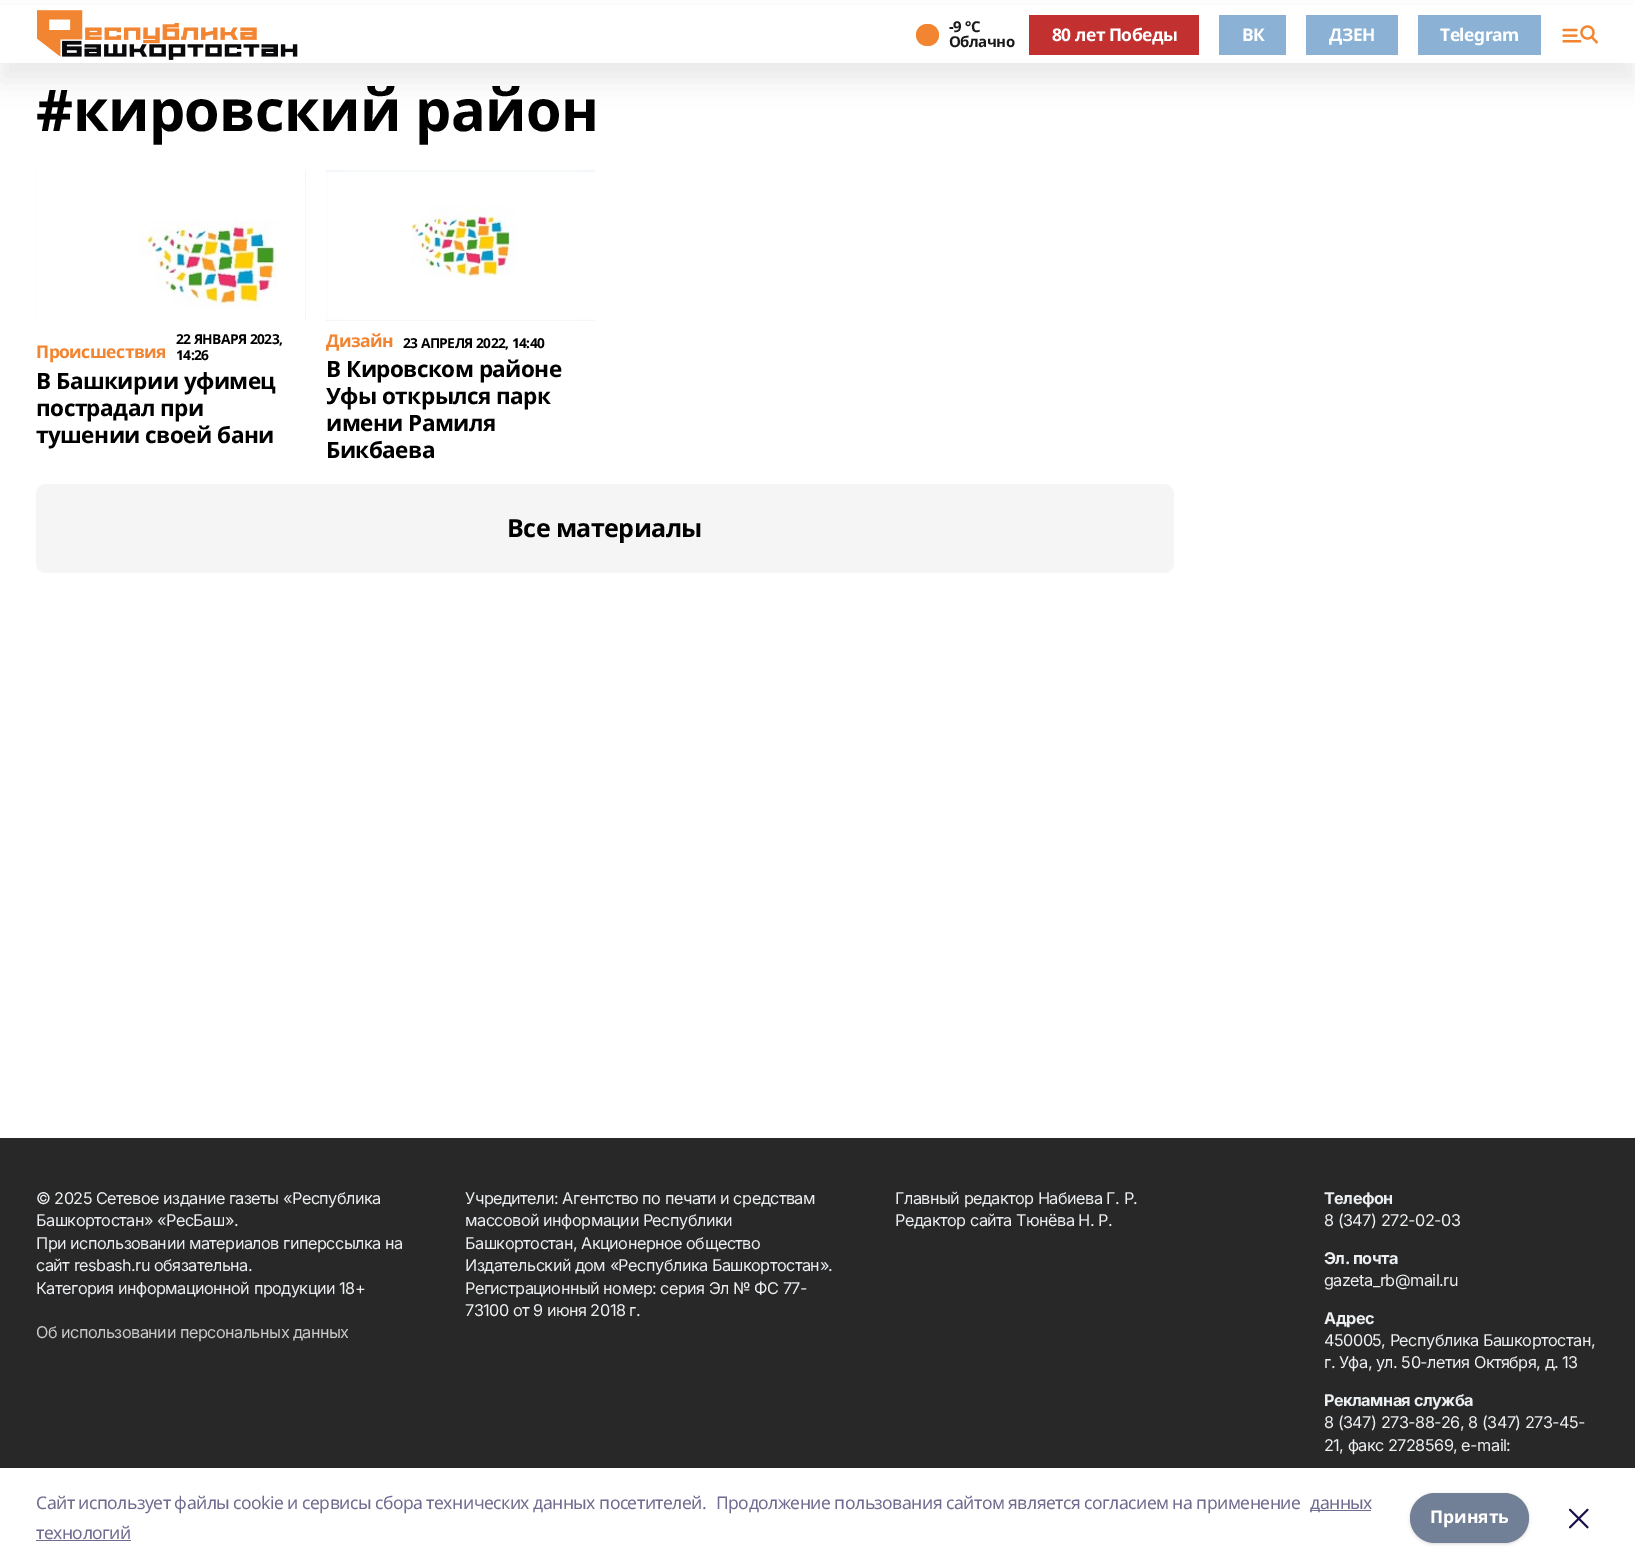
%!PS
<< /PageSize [1635 1567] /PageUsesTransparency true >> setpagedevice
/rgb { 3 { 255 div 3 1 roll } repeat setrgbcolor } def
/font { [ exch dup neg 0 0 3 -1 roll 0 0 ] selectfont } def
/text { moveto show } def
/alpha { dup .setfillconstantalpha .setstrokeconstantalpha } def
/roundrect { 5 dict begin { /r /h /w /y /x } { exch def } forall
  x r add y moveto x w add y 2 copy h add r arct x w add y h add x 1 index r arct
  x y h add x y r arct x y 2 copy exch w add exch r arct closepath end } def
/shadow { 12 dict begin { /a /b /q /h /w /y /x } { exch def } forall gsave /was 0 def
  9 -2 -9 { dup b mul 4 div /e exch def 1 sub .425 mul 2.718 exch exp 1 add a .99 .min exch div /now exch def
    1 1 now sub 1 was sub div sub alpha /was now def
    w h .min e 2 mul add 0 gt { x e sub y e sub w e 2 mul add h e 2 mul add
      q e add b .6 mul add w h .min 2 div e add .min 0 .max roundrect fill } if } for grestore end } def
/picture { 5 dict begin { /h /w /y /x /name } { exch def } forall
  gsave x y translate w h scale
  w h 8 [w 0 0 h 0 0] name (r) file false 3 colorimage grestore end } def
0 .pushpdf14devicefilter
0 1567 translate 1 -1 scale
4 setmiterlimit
255 255 255 rgb
0 0 1635 1567 rectfill
0 0 0 rgb
0 19 1635 62 0 12.5 0.08 shadow
255 255 255 rgb
0 5 1635 58 rectfill
(img_01.rgb) 37 10 261 50 picture
241 133 50 rgb
916 24 23 22 11 roundrect fill
194 48 48 rgb
1029 15 170 40 rectfill
139 177 212 rgb
1219 15 67 40 rectfill
1306 15 92 40 rectfill
1418 15 123 40 rectfill
(img_02.rgb) 1562 25 37 19 picture
237 242 247 rgb
36 170 270 151 rectfill
(img_03.rgb) 36 170 270 151 picture
(img_04.rgb) 36 170 269 151 picture
326 170 269 151 rectfill
(img_05.rgb) 326 170 269 151 picture
(img_06.rgb) 326 172 269 148 picture
245 245 245 rgb
36 484 1138 89 10 roundrect fill
40 40 40 rgb
0 1138 1635 330 rectfill
20 20 43 rgb
0 1460 1635 100 0 14.5 0.08 shadow
255 255 255 rgb
0 1468 1635 99 rectfill
111 108 144 rgb
1310 1510 61 1 rectfill
36 1540 95 1 rectfill
0 0 0 rgb
1410 1494 119 50 25 1 0.06 shadow
1410 1494 119 50 25 2 0.1 shadow
113 128 150 rgb
1410 1493 119 50 25 roundrect fill
(img_07.rgb) 1569 1508 20 21 picture
/NotoSans-Bold 15 font
26 26 26 rgb
949 32 moveto -0.53 0 (-9 °С) ashow
949 47 moveto -0.53 0 (Облачно) ashow
/NotoSans-Bold 17.5 font
255 255 255 rgb
1052 41 moveto -0.53 0 (80 лет Победы) ashow
1242 41 moveto -0.53 0 (ВК) ashow
1329 41 moveto -0.53 0 (ДЗЕН) ashow
1440 41 moveto -0.53 0 (Telegram) ashow
/NotoSans-Bold 57.5 font
0 0 0 rgb
36 131 moveto -0.53 0 (#кировский район) ashow
/NotoSans-Bold 17.5 font
241 133 50 rgb
36 358 moveto -0.53 0 (Происшествия) ashow
/NotoSans-Bold 13.75 font
0 0 0 rgb
176 344 moveto -0.53 0 (22 ЯНВАРЯ 2023,) ashow
176 360 moveto -0.53 0 (14:26) ashow
/NotoSans-Bold 22.5 font
36 389 moveto -0.53 0 (В Башкирии уфимец) ashow
36 416 moveto -0.53 0 (пострадал при) ashow
36 443 moveto -0.53 0 (тушении своей бани) ashow
/NotoSans-Bold 17.5 font
241 133 50 rgb
326 347 moveto -0.53 0 (Дизайн) ashow
/NotoSans-Bold 13.75 font
0 0 0 rgb
403 348 moveto -0.53 0 (23 АПРЕЛЯ 2022, 14:40) ashow
/NotoSans-Bold 22.5 font
326 377 moveto -0.53 0 (В Кировском районе) ashow
326 404 moveto -0.53 0 (Уфы открылся парк) ashow
326 431 moveto -0.53 0 (имени Рамиля) ashow
326 458 moveto -0.53 0 (Бикбаева) ashow
/NotoSans-Bold 25 font
507 537 moveto -0.53 0 (Все материалы) ashow
/Inter-Regular 16.25 font
236 239 241 rgb
36 1204 moveto -0.53 0 (© 2025 Сетевое издание газеты «Республика) ashow
36 1226 moveto -0.53 0 (Башкортостан» «РесБаш».) ashow
36 1249 moveto -0.53 0 (При использовании материалов гиперссылка на) ashow
36 1271 moveto -0.53 0 (сайт resbash.ru обязательна.) ashow
36 1294 moveto -0.53 0 (Категория информационной продукции 18+) ashow
201 201 201 rgb
36 1338 moveto -0.53 0 (Об использовании персональных данных) ashow
236 239 241 rgb
465 1204 moveto -0.53 0 (Учредители: Агентство по печати и средствам) ashow
465 1226 moveto -0.53 0 (массовой информации Республики) ashow
465 1249 moveto -0.53 0 (Башкортостан, Акционерное общество) ashow
465 1271 moveto -0.53 0 (Издательский дом «Республика Башкортостан».) ashow
465 1294 moveto -0.53 0 (Регистрационный номер: серия Эл № ФС 77-) ashow
465 1316 moveto -0.53 0 (73100 от 9 июня 2018 г.) ashow
895 1204 moveto -0.53 0 (Главный редактор Набиева Г. Р.) ashow
895 1226 moveto -0.53 0 (Редактор сайта Тюнёва Н. Р.) ashow
/Inter-Bold 16.25 font
1324 1204 moveto -0.53 0 (Телефон) ashow
/Inter-Regular 16.25 font
1324 1226 moveto -0.53 0 (8 \(347\) 272-02-03) ashow
/Inter-Bold 16.25 font
1324 1264 moveto -0.53 0 (Эл. почта) ashow
/Inter-Regular 16.25 font
1324 1286 moveto -0.53 0 (gazeta_rb@mail.ru) ashow
/Inter-Bold 16.25 font
1324 1324 moveto -0.53 0 (Адрес) ashow
/Inter-Regular 16.25 font
1324 1346 moveto -0.53 0 (450005, Республика Башкортостан,) ashow
1324 1368 moveto -0.53 0 (г. Уфа, ул. 50-летия Октября, д. 13) ashow
/Inter-Bold 16.25 font
1324 1406 moveto -0.53 0 (Рекламная служба) ashow
/Inter-Regular 16.25 font
1324 1428 moveto -0.53 0 (8 \(347\) 273-88-26, 8 \(347\) 273-45-) ashow
1324 1451 moveto -0.53 0 (21, факс 2728569, e-mail:) ashow
/NotoSans-Regular 17.5 font
111 108 144 rgb
36 1509 moveto -0.53 0 (Cайт использует файлы cookie и сервисы сбора технических данных посетителей.) ashow
716 1509 moveto -0.53 0 (Продолжение пользования сайтом является согласием на применение) ashow
1310 1509 moveto -0.53 0 (данных) ashow
36 1539 moveto -0.53 0 (технологий) ashow
/NotoSans-Bold 17.5 font
255 255 255 rgb
(Принять) 1430 1523 text
.poppdf14devicefilter showpage
